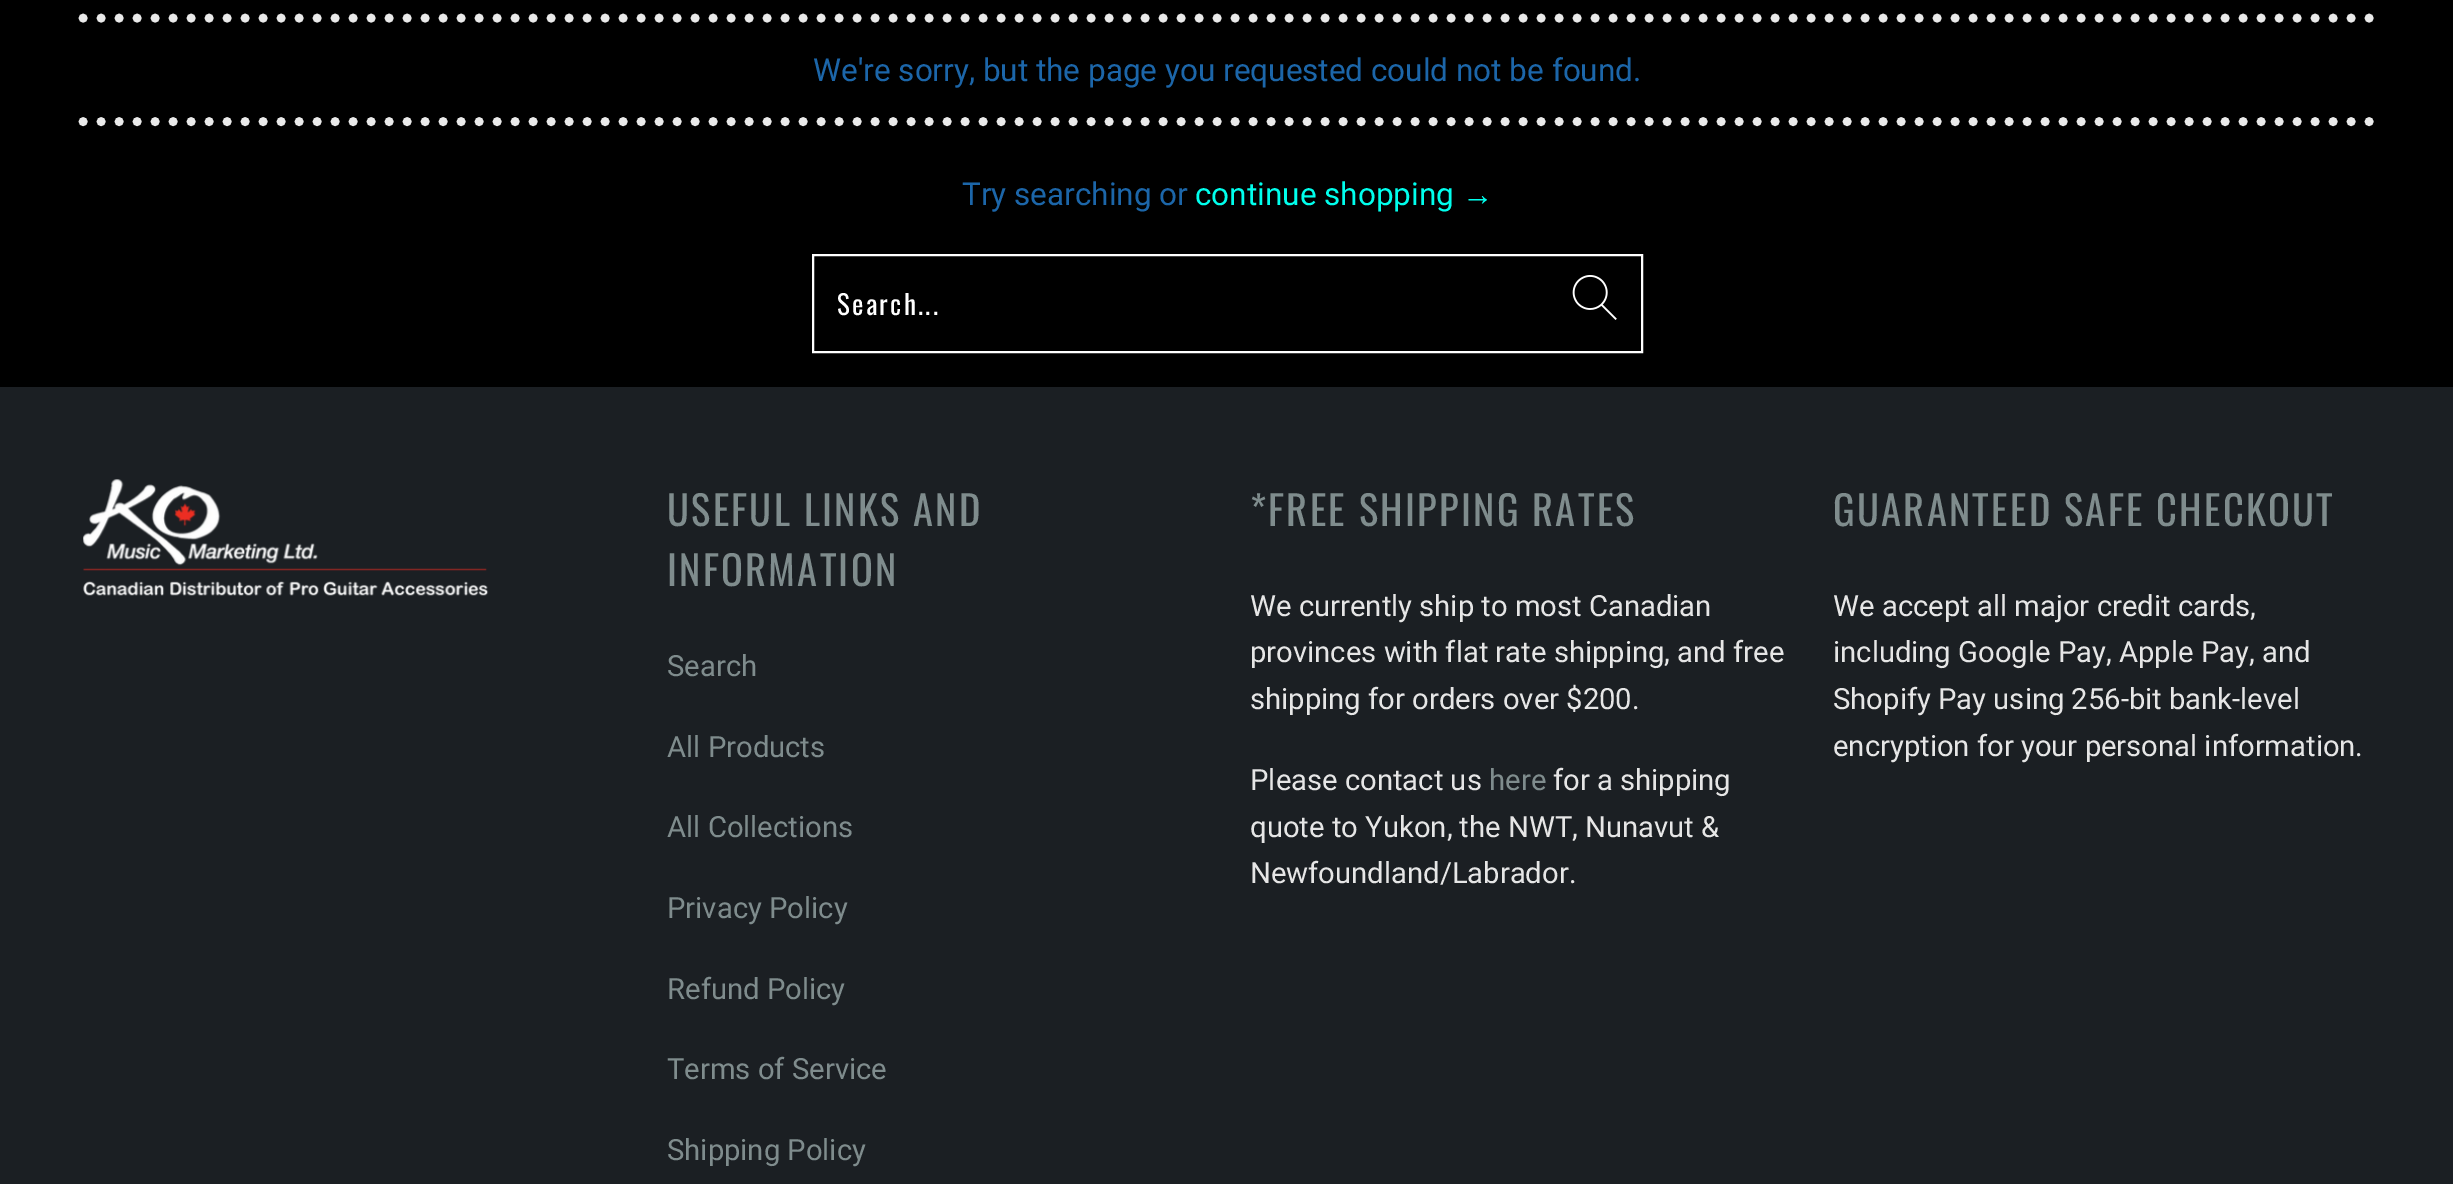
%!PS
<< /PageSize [2453 1184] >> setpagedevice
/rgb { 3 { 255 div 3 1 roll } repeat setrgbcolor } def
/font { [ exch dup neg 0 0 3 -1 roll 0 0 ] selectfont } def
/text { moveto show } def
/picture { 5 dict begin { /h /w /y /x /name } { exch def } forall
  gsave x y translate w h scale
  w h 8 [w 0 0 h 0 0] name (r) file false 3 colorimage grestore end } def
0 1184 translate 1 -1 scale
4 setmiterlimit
0 0 0 rgb
0 0 2453 1184 rectfill
234 234 234 rgb
9 setlinewidth
1 setlinecap
[0 18] 0 setdash
83 18 moveto 2288.5 0 rlineto stroke
83 121.5 moveto 2288.5 0 rlineto stroke
255 255 255 rgb
2 setlinewidth
0 setlinecap
[] 0 setdash
813 255 829 97 rectstroke
(img_01.rgb) 1572 275 45 45 picture
27 31 35 rgb
0 387 2453 797 rectfill
(img_02.rgb) 83 479 406 117 picture
/Roboto-Regular 31.5 font
28 102 169 rgb
(We're sorry, but the page you requested could not be found.) 813 81 text
(Try searching or) 962 205 text
0 255 237 rgb
(continue shopping) 1195 205 text
/LiberationSans-Regular 31.5 font
(→) 1462 205 text
/Oswald-Regular 27 font
255 255 255 rgb
837 315 moveto 2.25 0 (Search...) ashow
/Oswald-Regular 40.5 font
127 140 141 rgb
667 526 moveto 2.25 0 (USEFUL LINKS AND) ashow
667 586 moveto 2.25 0 (INFORMATION) ashow
/Roboto-Regular 29.25 font
(Search) 667 676 text
(All Products) 667 757 text
(All Collections) 667 837 text
(Privacy Policy) 667 918 text
(Refund Policy) 667 999 text
(Terms of Service) 667 1079 text
(Shipping Policy) 667 1160 text
/Oswald-Regular 40.5 font
1250 526 moveto 2.25 0 (*FREE SHIPPING RATES) ashow
/Roboto-Regular 29.25 font
230 230 230 rgb
(We currently ship to most Canadian) 1250 616 text
(provinces with flat rate shipping, and free) 1250 662 text
(shipping for orders over $200.) 1250 709 text
(Please contact us) 1250 790 text
127 140 141 rgb
(here) 1489 790 text
230 230 230 rgb
(for a shipping) 1553 790 text
(quote to Yukon, the NWT, Nunavut &) 1250 837 text
(Newfoundland/Labrador.) 1250 883 text
/Oswald-Regular 40.5 font
127 140 141 rgb
1833 526 moveto 2.25 0 (GUARANTEED SAFE CHECKOUT) ashow
/Roboto-Regular 29.25 font
230 230 230 rgb
(We accept all major credit cards,) 1833 616 text
(including Google Pay, Apple Pay, and) 1833 662 text
(Shopify Pay using 256-bit bank-level) 1833 709 text
(encryption for your personal information.) 1833 756 text
showpage
